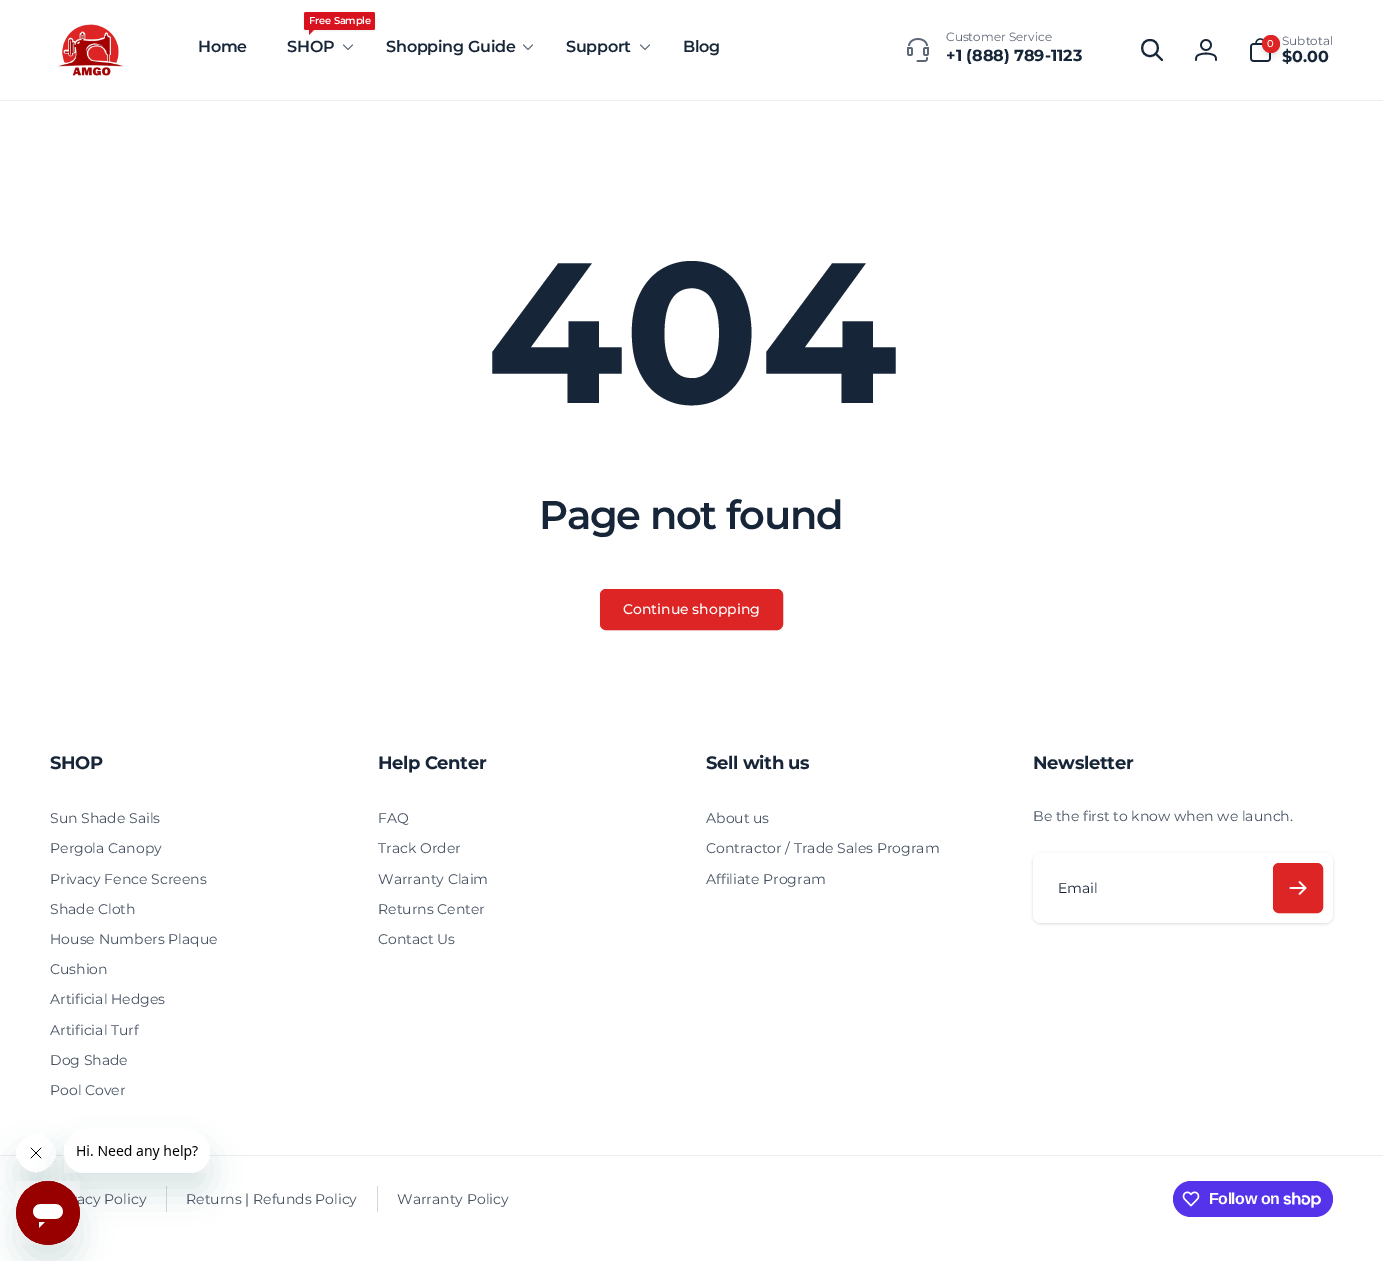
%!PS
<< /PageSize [1383 1261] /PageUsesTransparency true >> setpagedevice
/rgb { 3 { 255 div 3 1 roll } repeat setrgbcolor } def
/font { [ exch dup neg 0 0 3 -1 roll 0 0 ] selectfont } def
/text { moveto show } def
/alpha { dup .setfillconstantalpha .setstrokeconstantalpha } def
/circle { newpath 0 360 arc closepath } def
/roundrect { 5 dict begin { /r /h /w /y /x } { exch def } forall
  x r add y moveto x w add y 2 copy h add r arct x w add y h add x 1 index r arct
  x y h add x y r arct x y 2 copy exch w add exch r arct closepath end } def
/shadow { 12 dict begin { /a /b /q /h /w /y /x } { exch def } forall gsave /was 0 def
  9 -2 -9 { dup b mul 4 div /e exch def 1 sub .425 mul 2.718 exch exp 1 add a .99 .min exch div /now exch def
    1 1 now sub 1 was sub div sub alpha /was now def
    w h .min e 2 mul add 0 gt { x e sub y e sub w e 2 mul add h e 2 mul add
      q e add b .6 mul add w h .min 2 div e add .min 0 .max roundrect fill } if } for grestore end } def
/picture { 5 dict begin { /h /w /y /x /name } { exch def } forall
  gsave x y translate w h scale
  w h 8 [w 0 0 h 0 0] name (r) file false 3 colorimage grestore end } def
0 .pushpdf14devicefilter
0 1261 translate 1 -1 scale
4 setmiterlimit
255 255 255 rgb
0 0 1383 1261 rectfill
236 238 239 rgb
0 100 1383 1 rectfill
(img_01.rgb) 58 24 66 52 picture
23 37 57 rgb
304 13 71 18 2 1 0.07 shadow
217 18 31 rgb
304 12 71 18 2 roundrect fill
309 27 moveto 8 0 rlineto -4 4 rlineto closepath fill
309 35 moveto 0 -8 rlineto 4 4 rlineto closepath fill
93 102 116 rgb
1 setlinecap
1 setlinejoin
352.5 45 moveto -4.5 4.5 rlineto -4.5 -4.5 rlineto stroke
532.5 45 moveto -4.5 4.5 rlineto -4.5 -4.5 rlineto stroke
649.5 45 moveto -4.5 4.5 rlineto -4.5 -4.5 rlineto stroke
(img_02.rgb) 907 38 22 24 picture
23 37 57 rgb
2 setlinewidth
1162 60 moveto -6.5 -6.5 rlineto 1150 56 moveto 10.5 0 10.5 -16 0 -16 rcurveto -10.5 0 -10.5 16 0 16 rcurveto closepath stroke
(img_03.rgb) 1195 39 22 22 picture
(img_04.rgb) 1250 38 21 24 picture
1263 38 16 16 8 2 0.06 shadow
1263 40 16 16 8 3 0.1 shadow
221 37 37 rgb
1271 44 9 circle fill
23 37 57 rgb
600 590 183 41 6 1 0.05 shadow
221 37 37 rgb
600.5 589.5 182 40 5.5 roundrect gsave fill grestore
1 setlinewidth
0 setlinecap
0 setlinejoin
stroke
23 37 57 rgb
1033 854 300 70 8 1.5 0.1 shadow
1033 854 300 70 8 1 0.06 shadow
255 255 255 rgb
1033 853 300 70 8 roundrect fill
23 37 57 rgb
1273 864 50 50 6 1 0.05 shadow
221 37 37 rgb
1273.5 863.5 49 49 5.5 roundrect gsave fill grestore
stroke
255 255 255 rgb
1.7 setlinewidth
1 setlinecap
1 setlinejoin
1299.5 882 moveto 6 6 rlineto 1305.5 888 moveto -6 6 rlineto 1305.5 888 moveto -15 0 rlineto stroke
236 238 239 rgb
0 1155 1383 1 rectfill
213 216 219 rgb
166 1186 1 26 rectfill
377 1186 1 26 rectfill
84 51 235 rgb
1173 1181 160 36 18 roundrect fill
(img_05.rgb) 1182 1191 18 16 picture
(img_06.rgb) 1283 1192 38 16 picture
gsave
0 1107 moveto 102 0 rlineto 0 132 rlineto -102 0 rlineto closepath 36 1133 moveto 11 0 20 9 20 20 rcurveto 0 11 -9 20 -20 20 rcurveto -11 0 -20 -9 -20 -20 rcurveto 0 -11 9 -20 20 -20 rcurveto closepath eoclip newpath
23 73 77 rgb
16 1153 40 40 20 15 0.15 shadow
grestore
(img_08.rgb) 16 1147 40 12 picture
gsave
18 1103 moveto 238 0 rlineto 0 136 rlineto -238 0 rlineto closepath 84 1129 moveto 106 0 rlineto 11 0 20 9 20 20 rcurveto 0 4 rlineto 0 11 -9 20 -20 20 rcurveto -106 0 rlineto -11 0 -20 -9 -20 -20 rcurveto 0 -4 rlineto 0 -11 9 -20 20 -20 rcurveto closepath eoclip newpath
23 73 77 rgb
64 1149 146 44 20 15 0.15 shadow
grestore
(img_07.rgb) 64 1145 146 28 picture
23 73 77 rgb
16 1201 64 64 32 15 0.15 shadow
/Montserrat-SemiBold 16 font
23 37 57 rgb
198 52 moveto -0.25 0 (Home) ashow
/Montserrat-SemiBold 10 font
255 255 255 rgb
309 24 moveto -0.25 0 (Free Sample) ashow
/Montserrat-SemiBold 16 font
23 37 57 rgb
287 52 moveto -0.25 0 (SHOP) ashow
386 52 moveto -0.25 0 (Shopping Guide) ashow
566 52 moveto -0.25 0 (Support) ashow
683 52 moveto -0.25 0 (Blog) ashow
/Montserrat-Regular 12 font
93 102 116 rgb
(Customer Service) 946 41 text
/Montserrat-Bold 16 font
23 37 57 rgb
(+1 \(888\) 789-1123) 946 61 text
/Montserrat-Medium 10 font
255 255 255 rgb
(0) 1267 47 text
/Montserrat-Regular 12 font
93 102 116 rgb
(Subtotal) 1282 45 text
/Montserrat-Bold 16 font
23 37 57 rgb
($0.00) 1282 62 text
/Montserrat-Bold 200 font
(404) 486 403 text
/Montserrat-SemiBold 40 font
539 529 moveto -1.25 0 (Page not found) ashow
/Montserrat-Medium 14 font
255 255 255 rgb
(Continue shopping) 623 614 text
/Montserrat-Bold 18 font
23 37 57 rgb
50 769 moveto -0.4 0 (SHOP) ashow
/Montserrat-Regular 14 font
69 81 97 rgb
(Sun Shade Sails) 50 823 text
(Pergola Canopy) 50 853 text
(Privacy Fence Screens) 50 884 text
(Shade Cloth) 50 914 text
(House Numbers Plaque) 50 944 text
(Cushion) 50 974 text
(Artificial Hedges) 50 1004 text
(Artificial Turf) 50 1035 text
(Dog Shade) 50 1065 text
(Pool Cover) 50 1095 text
/Montserrat-Bold 18 font
23 37 57 rgb
378 769 moveto -0.4 0 (Help Center) ashow
/Montserrat-Regular 14 font
69 81 97 rgb
(FAQ) 378 823 text
(Track Order) 378 853 text
(Warranty Claim) 378 884 text
(Returns Center) 378 914 text
(Contact Us) 378 944 text
/Montserrat-Bold 18 font
23 37 57 rgb
706 769 moveto -0.4 0 (Sell with us) ashow
/Montserrat-Regular 14 font
69 81 97 rgb
(About us) 706 823 text
(Contractor / Trade Sales Program) 706 853 text
(Affiliate Program) 706 884 text
/Montserrat-Bold 18 font
23 37 57 rgb
1033 769 moveto -0.4 0 (Newsletter) ashow
/Montserrat-Regular 14 font
69 81 97 rgb
(Be the first to know when we launch.) 1033 821 text
23 37 57 rgb
(Email) 1058 893 text
69 81 97 rgb
(acy Policy) 77 1204 text
(Returns | Refunds Policy) 186 1204 text
(Warranty Policy) 397 1204 text
/LiberationSans-Bold 16 font
255 255 255 rgb
1209 1204 moveto -0.5 0 (Follow on) ashow
(img_09.rgb) 16 1181 64 64 picture
.poppdf14devicefilter showpage
